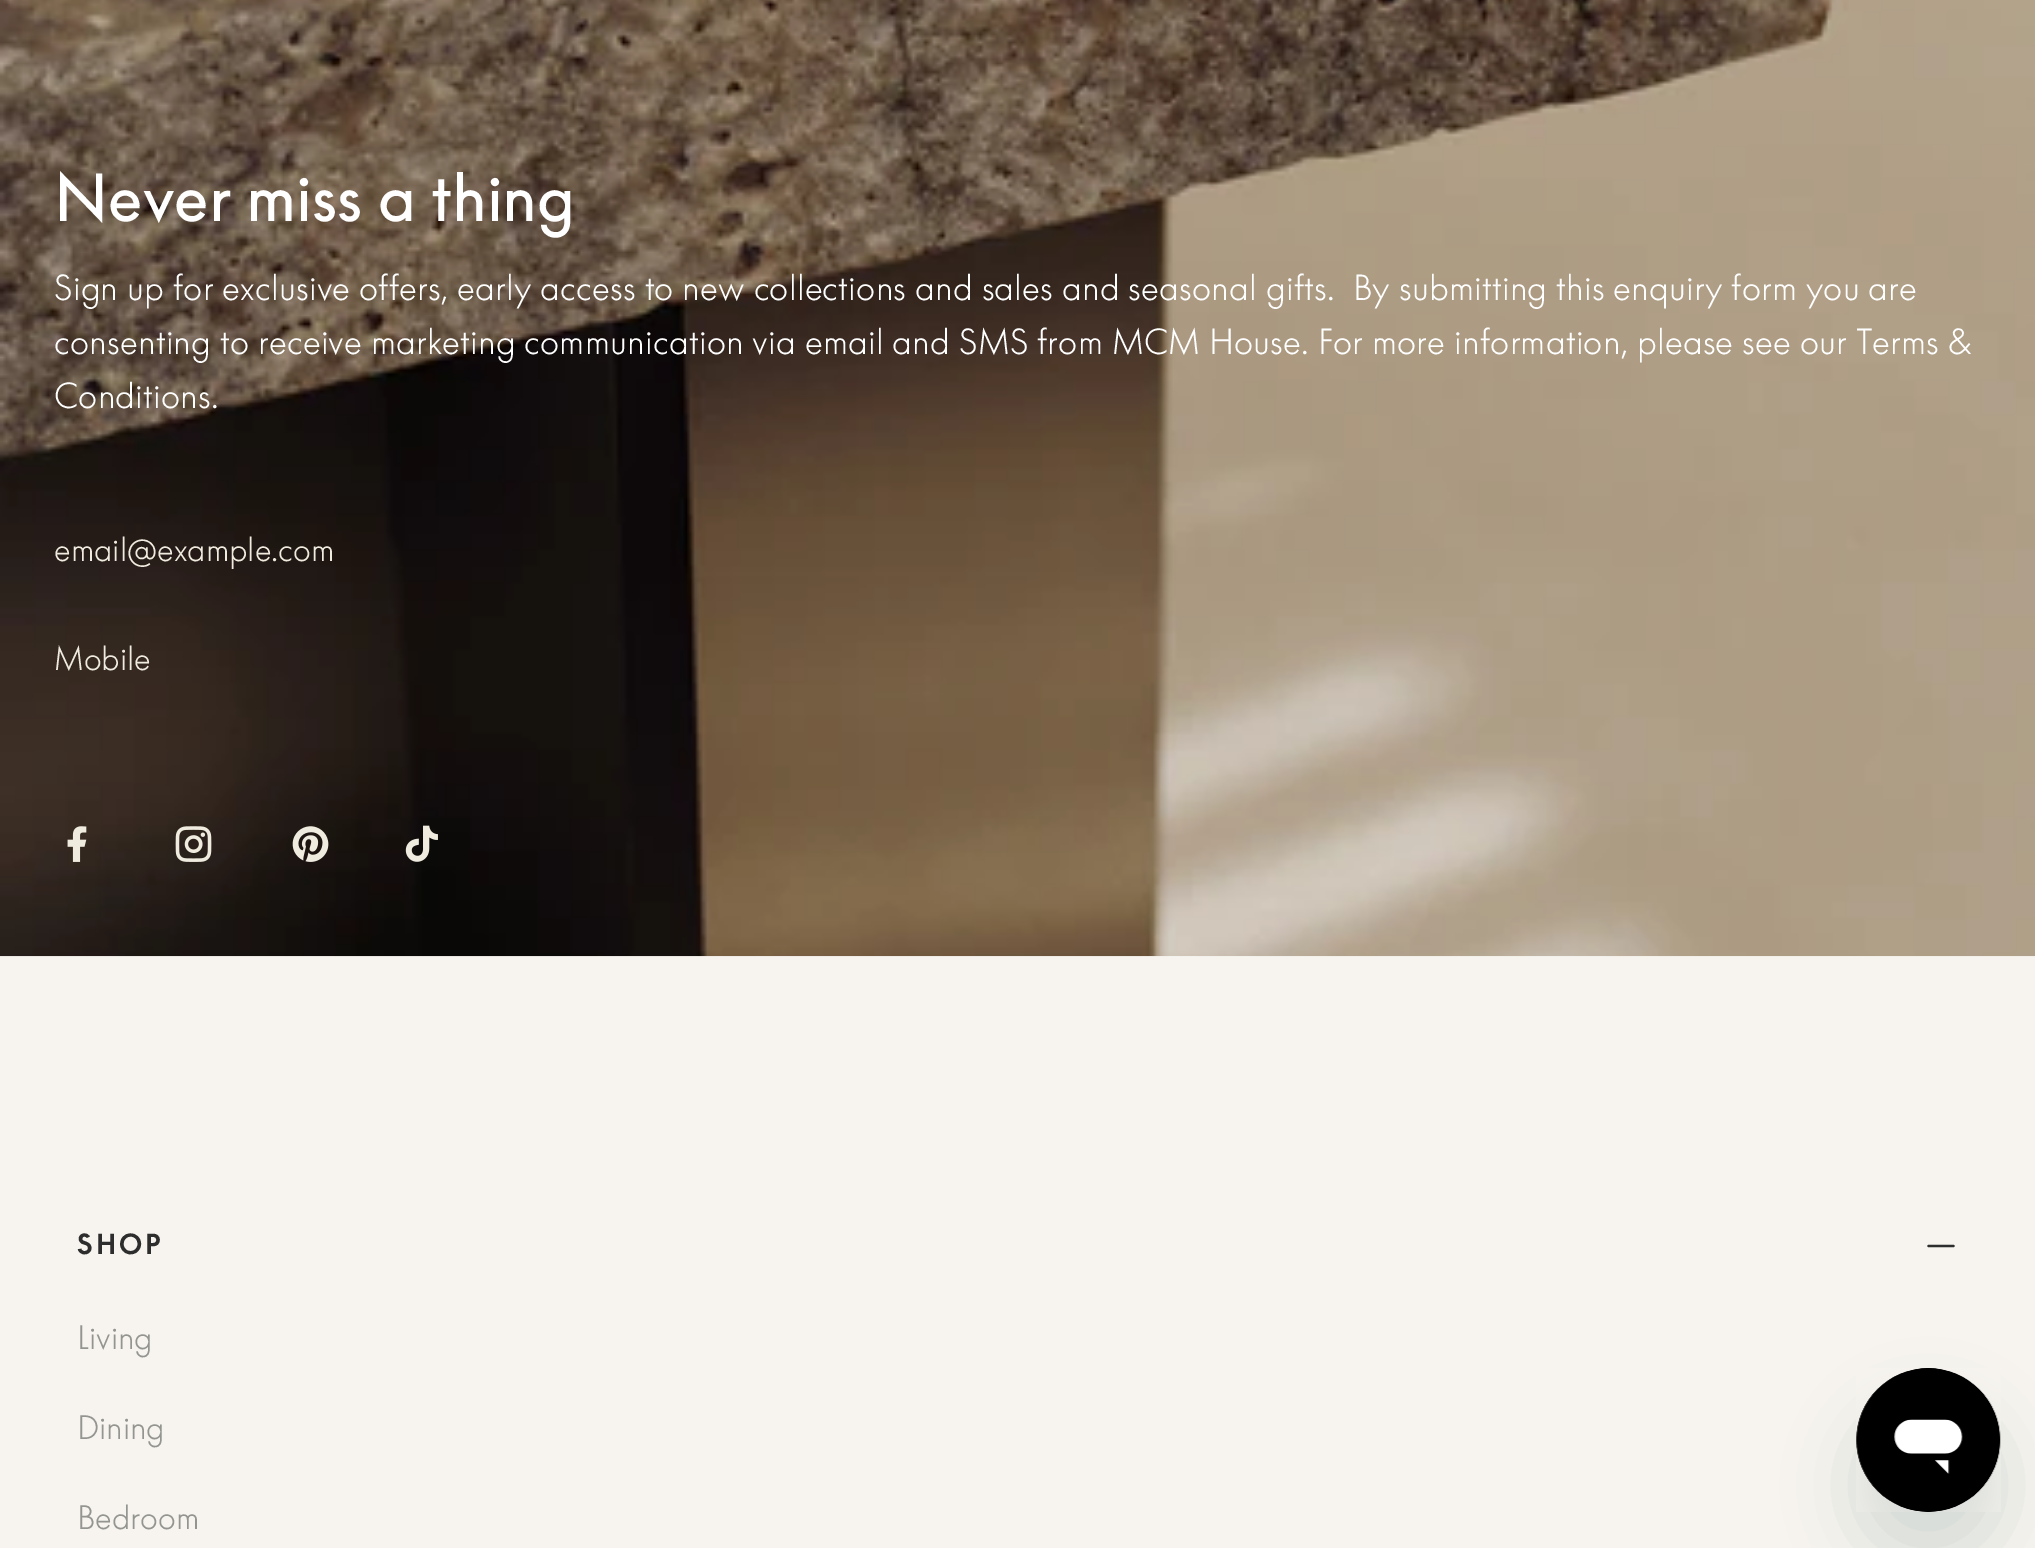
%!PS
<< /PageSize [2035 1548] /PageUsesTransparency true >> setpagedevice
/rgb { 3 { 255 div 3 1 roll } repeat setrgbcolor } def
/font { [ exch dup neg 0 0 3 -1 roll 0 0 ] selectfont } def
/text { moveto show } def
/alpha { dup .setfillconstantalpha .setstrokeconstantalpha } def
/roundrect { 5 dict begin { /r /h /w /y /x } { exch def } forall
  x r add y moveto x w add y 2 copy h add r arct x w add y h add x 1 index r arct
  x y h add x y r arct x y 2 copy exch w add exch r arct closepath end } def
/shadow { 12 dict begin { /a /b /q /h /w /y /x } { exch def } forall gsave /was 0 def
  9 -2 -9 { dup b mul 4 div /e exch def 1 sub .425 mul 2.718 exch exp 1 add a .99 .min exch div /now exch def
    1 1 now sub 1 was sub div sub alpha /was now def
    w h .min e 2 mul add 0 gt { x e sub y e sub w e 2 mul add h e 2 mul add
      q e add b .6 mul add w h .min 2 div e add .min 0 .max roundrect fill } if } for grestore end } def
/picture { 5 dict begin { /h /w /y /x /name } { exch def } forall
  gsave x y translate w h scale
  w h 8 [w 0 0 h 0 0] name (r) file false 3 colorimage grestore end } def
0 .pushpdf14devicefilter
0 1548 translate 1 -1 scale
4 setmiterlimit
247 244 239 rgb
0 0 2035 1548 rectfill
(img_01.rgb) 0 0 2035 957 picture
(img_02.rgb) 67 826 20 36 picture
(img_03.rgb) 175 826 37 36 picture
(img_04.rgb) 292 826 37 36 picture
(img_05.rgb) 405 825 33 37 picture
45 45 45 rgb
2.2 setlinewidth
1 setlinecap
1 setlinejoin
1953.5 1246 moveto -25 0 rlineto stroke
23 73 77 rgb
1856 1413 144 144 72 34 0.15 shadow
(img_06.rgb) 1856 1368 145 144 picture
/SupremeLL-Regular 63 font
255 255 255 rgb
(Never miss a thing) 54 221 text
/SupremeLL-Light 33.75 font
54 300 moveto 0.22 0 (Sign up for exclusive offers, early access to new collections and sales and seasonal gifts.  By submitting this enquiry form you are) ashow
54 354 moveto 0.22 0 (consenting to receive marketing communication via email and SMS from MCM House. For more information, please see our Terms &) ashow
54 408 moveto 0.22 0 (Conditions.) ashow
/SupremeLL-Light 31.5 font
240 235 223 rgb
(email@example.com) 54 561 text
(Mobile) 54 670 text
/SupremeLL-Bold 27 font
45 45 45 rgb
77 1254 moveto 3 0 (SHOP) ashow
/SupremeLL-Light 31.5 font
148 149 145 rgb
(Living) 77 1349 text
(Dining) 77 1439 text
(Bedroom) 77 1529 text
.poppdf14devicefilter showpage
